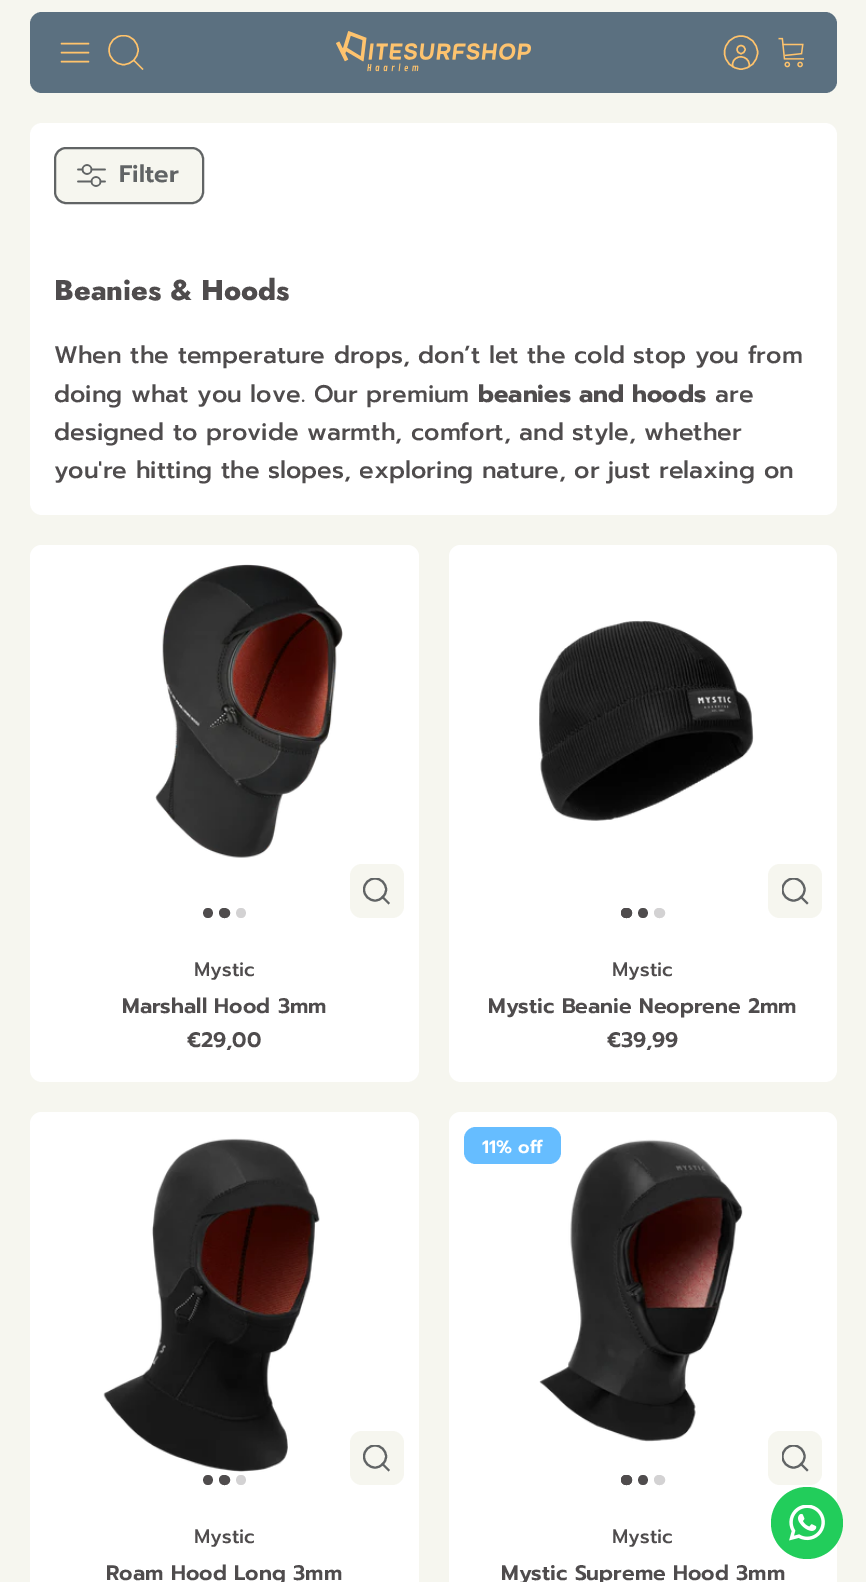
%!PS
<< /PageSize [866 1582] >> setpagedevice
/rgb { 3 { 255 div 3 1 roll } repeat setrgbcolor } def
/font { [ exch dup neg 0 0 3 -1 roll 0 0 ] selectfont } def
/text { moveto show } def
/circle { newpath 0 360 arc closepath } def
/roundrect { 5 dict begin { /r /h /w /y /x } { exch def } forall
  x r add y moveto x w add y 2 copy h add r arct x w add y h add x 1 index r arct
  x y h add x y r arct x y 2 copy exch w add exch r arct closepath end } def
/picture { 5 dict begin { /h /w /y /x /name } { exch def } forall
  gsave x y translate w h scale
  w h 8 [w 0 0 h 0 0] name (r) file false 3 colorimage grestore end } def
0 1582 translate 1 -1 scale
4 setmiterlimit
246 246 239 rgb
0 0 866 1582 rectfill
91 112 128 rgb
30 12 807 81 12 roundrect fill
255 195 108 rgb
1.5 setlinewidth
1 setlinecap
1 setlinejoin
61.5 52.5 moveto 27 0 rlineto 61.5 43.5 moveto 27 0 rlineto 61.5 61.5 moveto 27 0 rlineto stroke
gsave
108 35 36 36 rectclip
1.4 setlinewidth
0 setlinecap
0 setlinejoin
123.5 50 14.5 circle stroke
grestore
1.4 setlinewidth
2 setlinecap
0 setlinejoin
134.5 61 moveto 8 8 rlineto stroke
(img_01.rgb) 336 31 195 41 picture
0 setlinecap
749 67 moveto 2.5 -9 -10.5 -14.5 -15.5 -6 rcurveto -1 2 -1.5 4 -0.5 6 rcurveto stroke
741 49.5 4 circle stroke
741 52.5 16.5 circle stroke
(img_02.rgb) 778 37 26 31 picture
255 255 255 rgb
30 123 807 392 12 roundrect fill
246 246 239 rgb
55 148 148 55 11 roundrect gsave fill grestore
97 100 101 rgb
2 setlinewidth
stroke
(img_03.rgb) 77 164 29 23 picture
255 255 255 rgb
30 545 389 537 12 roundrect fill
42 545 moveto 365 0 rlineto 6.5 0 12 5.5 12 12 rcurveto 0 376 rlineto -389 0 rlineto 0 -376 rlineto 0 -6.5 5.5 -12 12 -12 rcurveto closepath fill
(img_04.rgb) 155 564 188 294 picture
79 76 77 rgb
208 908 moveto 6.5 0 6.5 10 0 10 rcurveto -6.5 0 -6.5 -10 0 -10 rcurveto closepath 224 908 moveto 8 0 8 9.5 1 10 rcurveto -7.5 0.5 -8 -10 -1 -10 rcurveto closepath fill
211 210 211 rgb
241 908 moveto 6.5 0 6.5 10 0 10 rcurveto -6.5 0 -6.5 -10 0 -10 rcurveto closepath fill
246 246 239 rgb
350 864 54 54 12 roundrect fill
gsave
363 878 27 27 rectclip
97 100 101 rgb
2.1 setlinewidth
375 889.5 11 circle stroke
grestore
97 100 101 rgb
2.1 setlinewidth
2 setlinecap
382.5 897 moveto 6 6 rlineto stroke
255 255 255 rgb
449 545 388 537 12 roundrect fill
461 545 moveto 364 0 rlineto 6.5 0 12 5.5 12 12 rcurveto 0 376 rlineto -388 0 rlineto 0 -376 rlineto 0 -6.5 5.5 -12 12 -12 rcurveto closepath fill
(img_05.rgb) 539 620 215 201 picture
79 76 77 rgb
621 908 11 10 5 roundrect fill
626 908 moveto 8 0 8 9.5 1 10 rcurveto -7.5 0.5 -8 -10 -1 -10 rcurveto closepath 643 908 moveto 6.5 0 6.5 10 0 10 rcurveto -6.5 0 -6.5 -10 0 -10 rcurveto closepath fill
211 210 211 rgb
659 908 moveto 8 0 8 9.5 1 10 rcurveto -7.5 0.5 -8 -10 -1 -10 rcurveto closepath fill
246 246 239 rgb
768 864 54 54 12 roundrect fill
gsave
782 878 27 27 rectclip
97 100 101 rgb
0 setlinecap
793.5 889.5 11 circle stroke
grestore
97 100 101 rgb
801 897 moveto 6 6 rlineto stroke
255 255 255 rgb
30 1112 389 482 12 roundrect fill
42 1112 moveto 365 0 rlineto 6.5 0 12 5.5 12 12 rcurveto 0 376 rlineto -389 0 rlineto 0 -376 rlineto 0 -6.5 5.5 -12 12 -12 rcurveto closepath fill
(img_06.rgb) 103 1138 217 334 picture
79 76 77 rgb
208 1475 moveto 6.5 0 6.5 10 0 10 rcurveto -6.5 0 -6.5 -10 0 -10 rcurveto closepath 224 1475 moveto 8 0 8 9.5 1 10 rcurveto -7.5 0.5 -8 -10 -1 -10 rcurveto closepath fill
211 210 211 rgb
241 1475 moveto 6.5 0 6.5 10 0 10 rcurveto -6.5 0 -6.5 -10 0 -10 rcurveto closepath fill
246 246 239 rgb
350 1431 54 54 12 roundrect fill
gsave
363 1445 27 27 rectclip
97 100 101 rgb
0 setlinecap
375 1456.5 11 circle stroke
grestore
97 100 101 rgb
382.5 1464 moveto 6 6 rlineto stroke
255 255 255 rgb
449 1112 388 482 12 roundrect fill
461 1112 moveto 364 0 rlineto 6.5 0 12 5.5 12 12 rcurveto 0 376 rlineto -388 0 rlineto 0 -376 rlineto 0 -6.5 5.5 -12 12 -12 rcurveto closepath fill
(img_07.rgb) 539 1139 204 303 picture
102 189 255 rgb
464 1127 97 37 12 roundrect fill
79 76 77 rgb
621 1475 11 10 5 roundrect fill
626 1475 moveto 8 0 8 9.5 1 10 rcurveto -7.5 0.5 -8 -10 -1 -10 rcurveto closepath 643 1475 moveto 6.5 0 6.5 10 0 10 rcurveto -6.5 0 -6.5 -10 0 -10 rcurveto closepath fill
211 210 211 rgb
659 1475 moveto 8 0 8 9.5 1 10 rcurveto -7.5 0.5 -8 -10 -1 -10 rcurveto closepath fill
246 246 239 rgb
768 1431 54 54 12 roundrect fill
gsave
782 1445 27 27 rectclip
97 100 101 rgb
0 setlinecap
793.5 1456.5 11 circle stroke
grestore
97 100 101 rgb
801 1464 moveto 6 6 rlineto stroke
34 205 91 rgb
807 1523 36 circle fill
(img_08.rgb) 789 1505 36 36 picture
/Prompt-SemiBold 24 font
97 100 101 rgb
(Filter) 119 182 text
/Jost-ExtraBold 28.5 font
79 76 77 rgb
(Beanies & Hoods) 54 300 text
/Prompt-Medium 24 font
(When the temperature drops, don’t let the cold stop you from) 54 363 text
(doing what you love. Our premium) 54 402 text
/Prompt-Bold 24 font
(beanies and hoods) 478 402 text
/Prompt-Medium 24 font
(are) 715 402 text
(designed to provide warmth, comfort, and style, whether) 54 440 text
(you're hitting the slopes, exploring nature, or just relaxing on) 54 478 text
/Prompt-Medium 19.5 font
(Mystic) 194 976 text
/Prompt-SemiBold 21 font
(Marshall Hood 3mm) 122 1013 text
(€29,00) 187 1047 text
/Prompt-Medium 19.5 font
(Mystic) 612 976 text
/Prompt-SemiBold 21 font
(Mystic Beanie Neoprene 2mm) 488 1013 text
(€39,99) 607 1047 text
/Prompt-Medium 19.5 font
(Mystic) 194 1543 text
/Prompt-SemiBold 21 font
(Roam Hood Long 3mm) 106 1580 text
/Prompt-SemiBold 18 font
255 255 255 rgb
(11% off) 482 1153 text
/Prompt-Medium 19.5 font
79 76 77 rgb
(Mystic) 612 1543 text
/Prompt-SemiBold 21 font
(Mystic Supreme Hood 3mm) 501 1580 text
showpage
